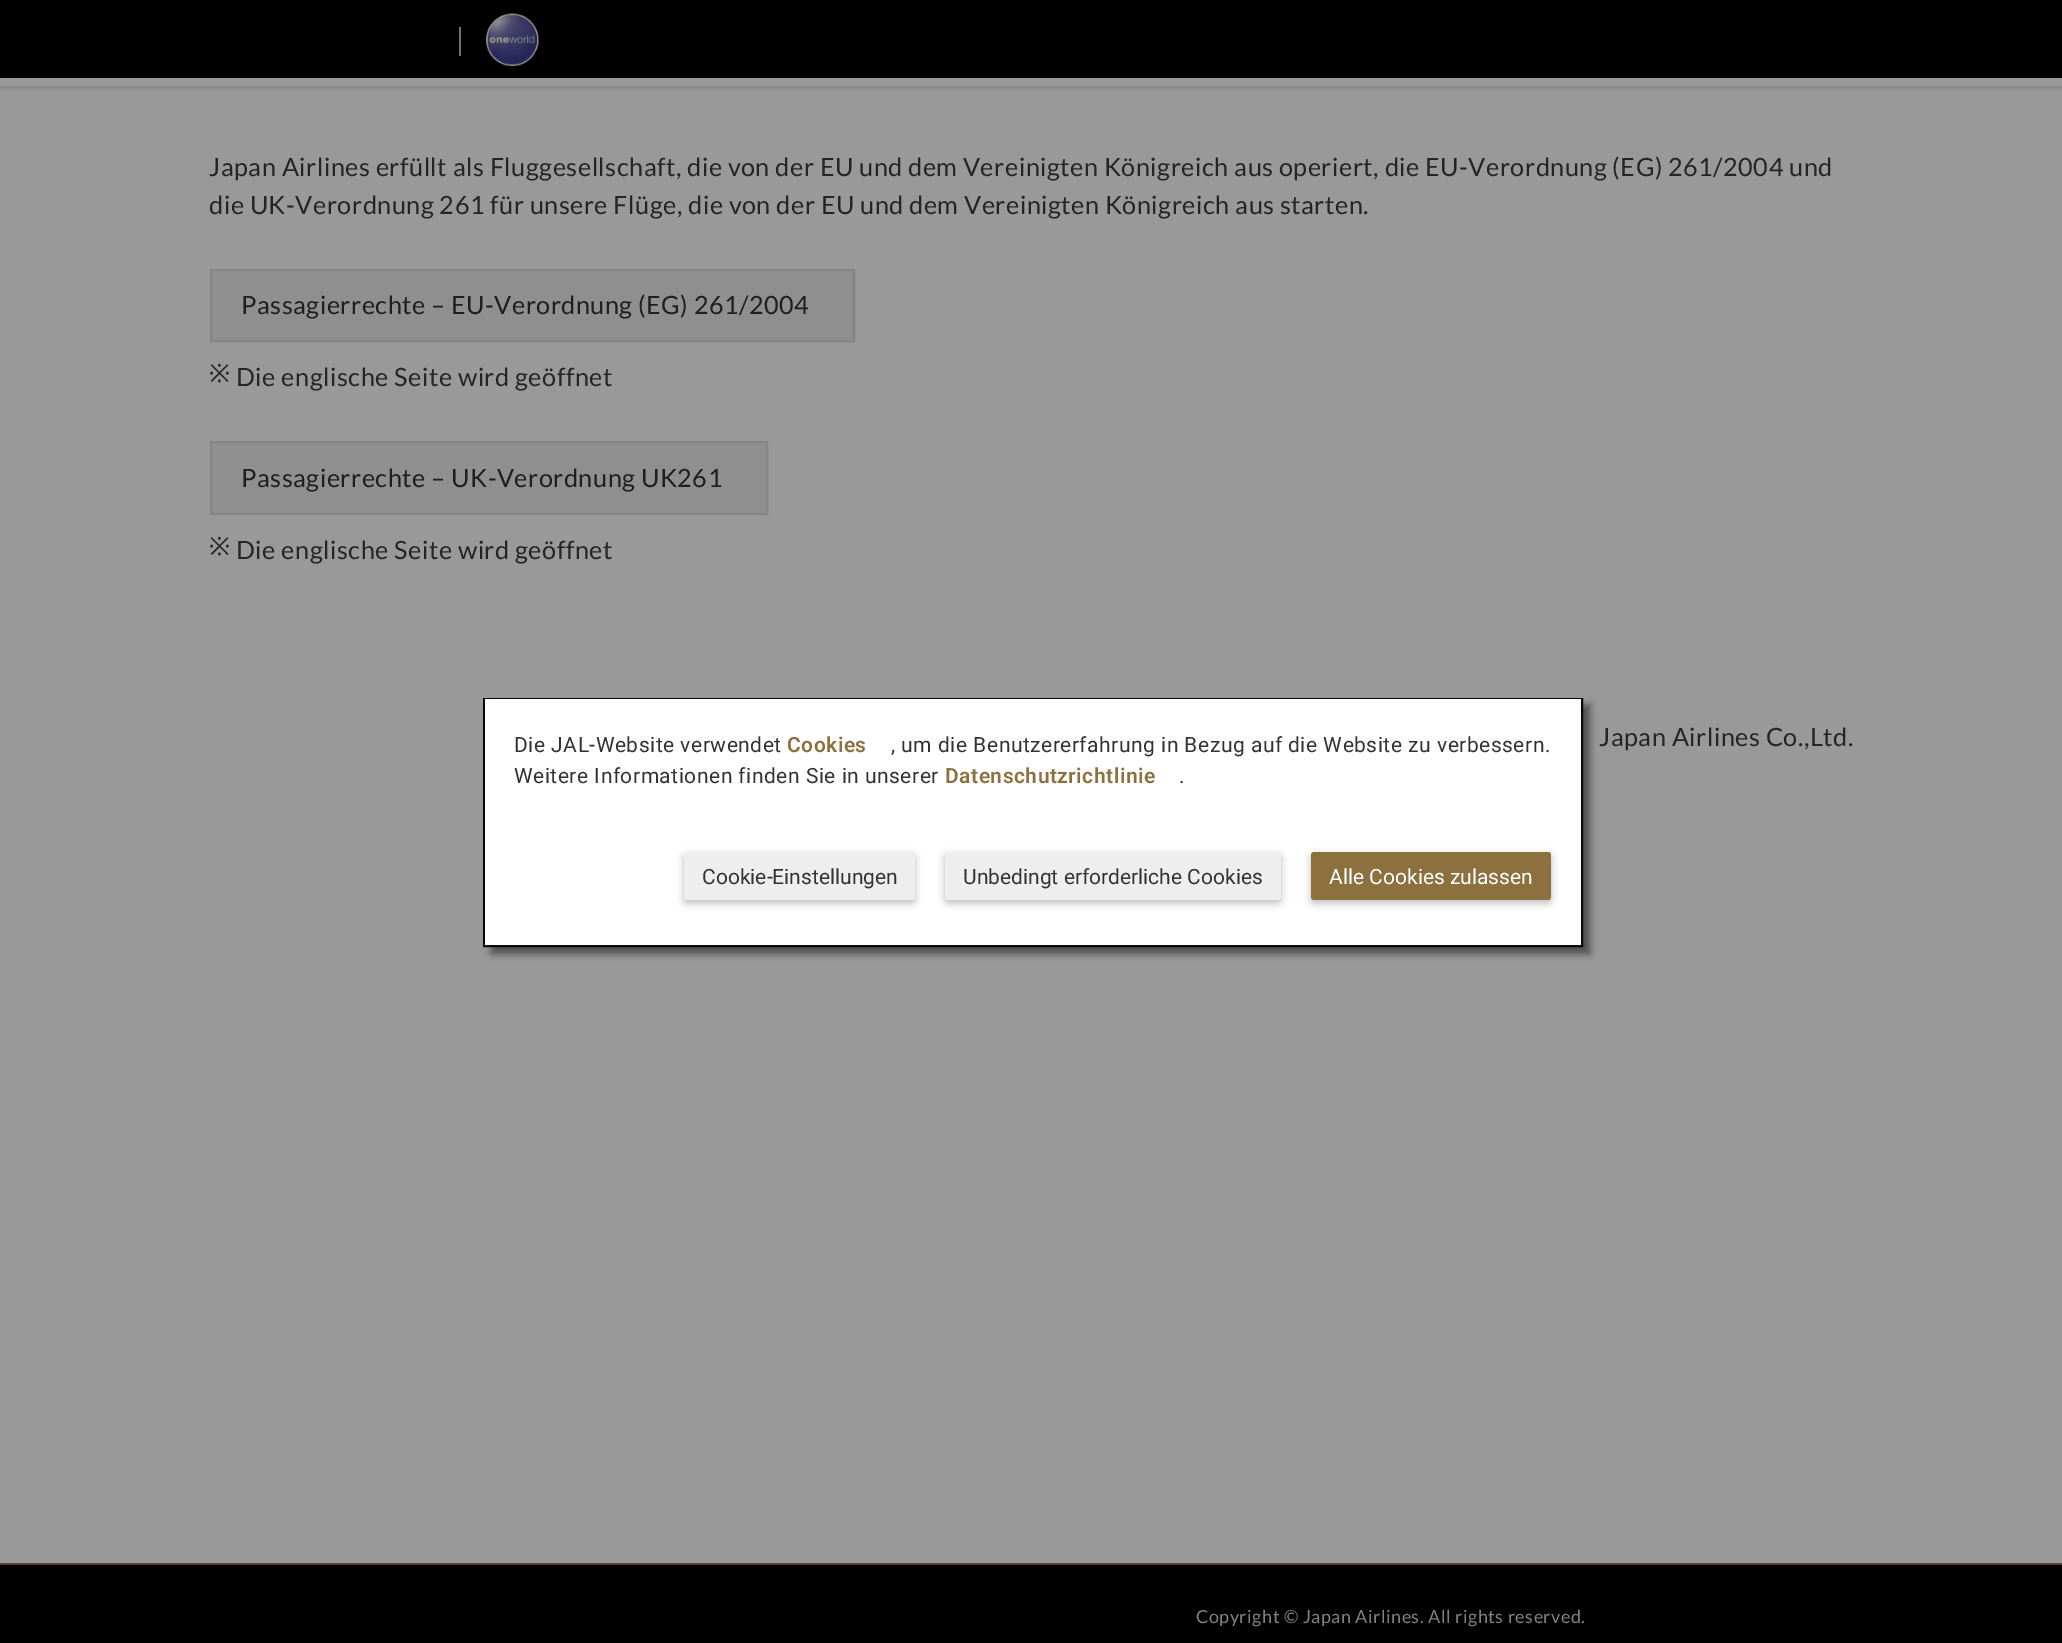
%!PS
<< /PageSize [2062 1643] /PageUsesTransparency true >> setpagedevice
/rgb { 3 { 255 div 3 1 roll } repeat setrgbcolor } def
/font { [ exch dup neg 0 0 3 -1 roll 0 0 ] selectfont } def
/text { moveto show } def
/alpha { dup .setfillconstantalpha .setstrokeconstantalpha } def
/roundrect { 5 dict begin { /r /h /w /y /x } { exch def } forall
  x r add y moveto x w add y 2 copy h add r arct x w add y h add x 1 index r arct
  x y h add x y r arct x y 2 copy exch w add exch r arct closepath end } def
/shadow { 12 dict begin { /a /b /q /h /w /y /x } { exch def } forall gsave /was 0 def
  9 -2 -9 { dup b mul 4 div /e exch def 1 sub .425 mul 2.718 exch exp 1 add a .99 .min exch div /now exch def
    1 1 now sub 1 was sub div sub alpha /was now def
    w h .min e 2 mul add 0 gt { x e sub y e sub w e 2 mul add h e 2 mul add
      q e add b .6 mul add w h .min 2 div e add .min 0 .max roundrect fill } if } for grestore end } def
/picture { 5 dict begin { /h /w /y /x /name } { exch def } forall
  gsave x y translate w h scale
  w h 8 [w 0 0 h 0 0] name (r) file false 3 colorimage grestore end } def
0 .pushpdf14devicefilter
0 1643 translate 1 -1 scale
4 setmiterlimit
153 153 153 rgb
0 0 2062 1643 rectfill
gsave
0 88 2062 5 rectclip
142 142 142 rgb
0 -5 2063 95 0 1.5 1 shadow
grestore
0 0 0 rgb
0 0 2062 78 rectfill
115 115 115 rgb
459 27 2 29 rectfill
(img_01.rgb) 486 13 53 53 picture
136 136 136 rgb
0 86 2062 2 rectfill
143 143 143 rgb
211 270 moveto 643 0 rlineto 0 71 rlineto -643 0 rlineto closepath gsave fill grestore
133 133 133 rgb
2 setlinewidth
stroke
143 143 143 rgb
211 442 moveto 556 0 rlineto 0 72 rlineto -556 0 rlineto closepath gsave fill grestore
133 133 133 rgb
stroke
0 0 0 rgb
0 1565 2062 78 rectfill
84 68 38 rgb
0 1563 2062 2 rectfill
77 77 77 rgb
491 705 1099 249 0 4 1 shadow
10 10 10 rgb
484 699 1098 247 rectstroke
255 255 255 rgb
485 699 1096 246 rectfill
0 0 0 rgb
684 855 231 48 3 4 0.26 shadow
238 238 238 rgb
684 852 231 48 3 roundrect fill
0 0 0 rgb
945 855 336 48 3 4 0.26 shadow
238 238 238 rgb
945 852 336 48 3 roundrect fill
0 0 0 rgb
1311 855 240 48 3 4 0.26 shadow
140 113 63 rgb
1311 852 240 48 3 roundrect fill
/Lato-Regular 25.2 font
37 37 37 rgb
209 176 moveto 0.5 0 (Japan Airlines erfüllt als Fluggesellschaft, die von der EU und dem Vereinigten Königreich aus operiert, die EU-Verordnung \(EG\) 261/2004 und) ashow
209 214 moveto 0.5 0 (die UK-Verordnung 261 für unsere Flüge, die von der EU und dem Vereinigten Königreich aus starten.) ashow
31 31 31 rgb
241 314 moveto 0.5 0 (Passagierrechte – EU-Verordnung \(EG\) 261/2004) ashow
/NotoSans-Regular 25.2 font
37 37 37 rgb
209 382 moveto 0.5 0 (※) ashow
/Lato-Regular 25.2 font
236 386 moveto 0.5 0 (Die englische Seite wird geöffnet) ashow
31 31 31 rgb
241 487 moveto 0.5 0 (Passagierrechte – UK-Verordnung UK261) ashow
/NotoSans-Regular 25.2 font
37 37 37 rgb
209 555 moveto 0.5 0 (※) ashow
/Lato-Regular 25.2 font
236 559 moveto 0.5 0 (Die englische Seite wird geöffnet) ashow
1599 746 moveto 0.5 0 (Japan Airlines Co.,Ltd.) ashow
/Lato-Regular 18 font
128 128 128 rgb
1196 1623 moveto 0.5 0 (Copyright © Japan Airlines. All rights reserved.) ashow
/Roboto-Regular 21 font
51 51 51 rgb
514 752 moveto 0.5 0 (Die JAL-Website verwendet) ashow
/Roboto-SemiBold 21 font
140 113 63 rgb
787 752 moveto 0.5 0 (Cookies) ashow
/Roboto-Regular 21 font
51 51 51 rgb
891 752 moveto 0.5 0 (, um die Benutzererfahrung in Bezug auf die Website zu verbessern.) ashow
514 783 moveto 0.5 0 (Weitere Informationen finden Sie in unserer) ashow
/Roboto-SemiBold 21 font
140 113 63 rgb
945 783 moveto 0.5 0 (Datenschutzrichtlinie) ashow
/Roboto-Regular 21 font
51 51 51 rgb
1179 783 moveto 0.5 0 (.) ashow
(Cookie-Einstellungen) 702 884 text
(Unbedingt erforderliche Cookies) 963 884 text
255 255 255 rgb
(Alle Cookies zulassen) 1329 884 text
.poppdf14devicefilter showpage
